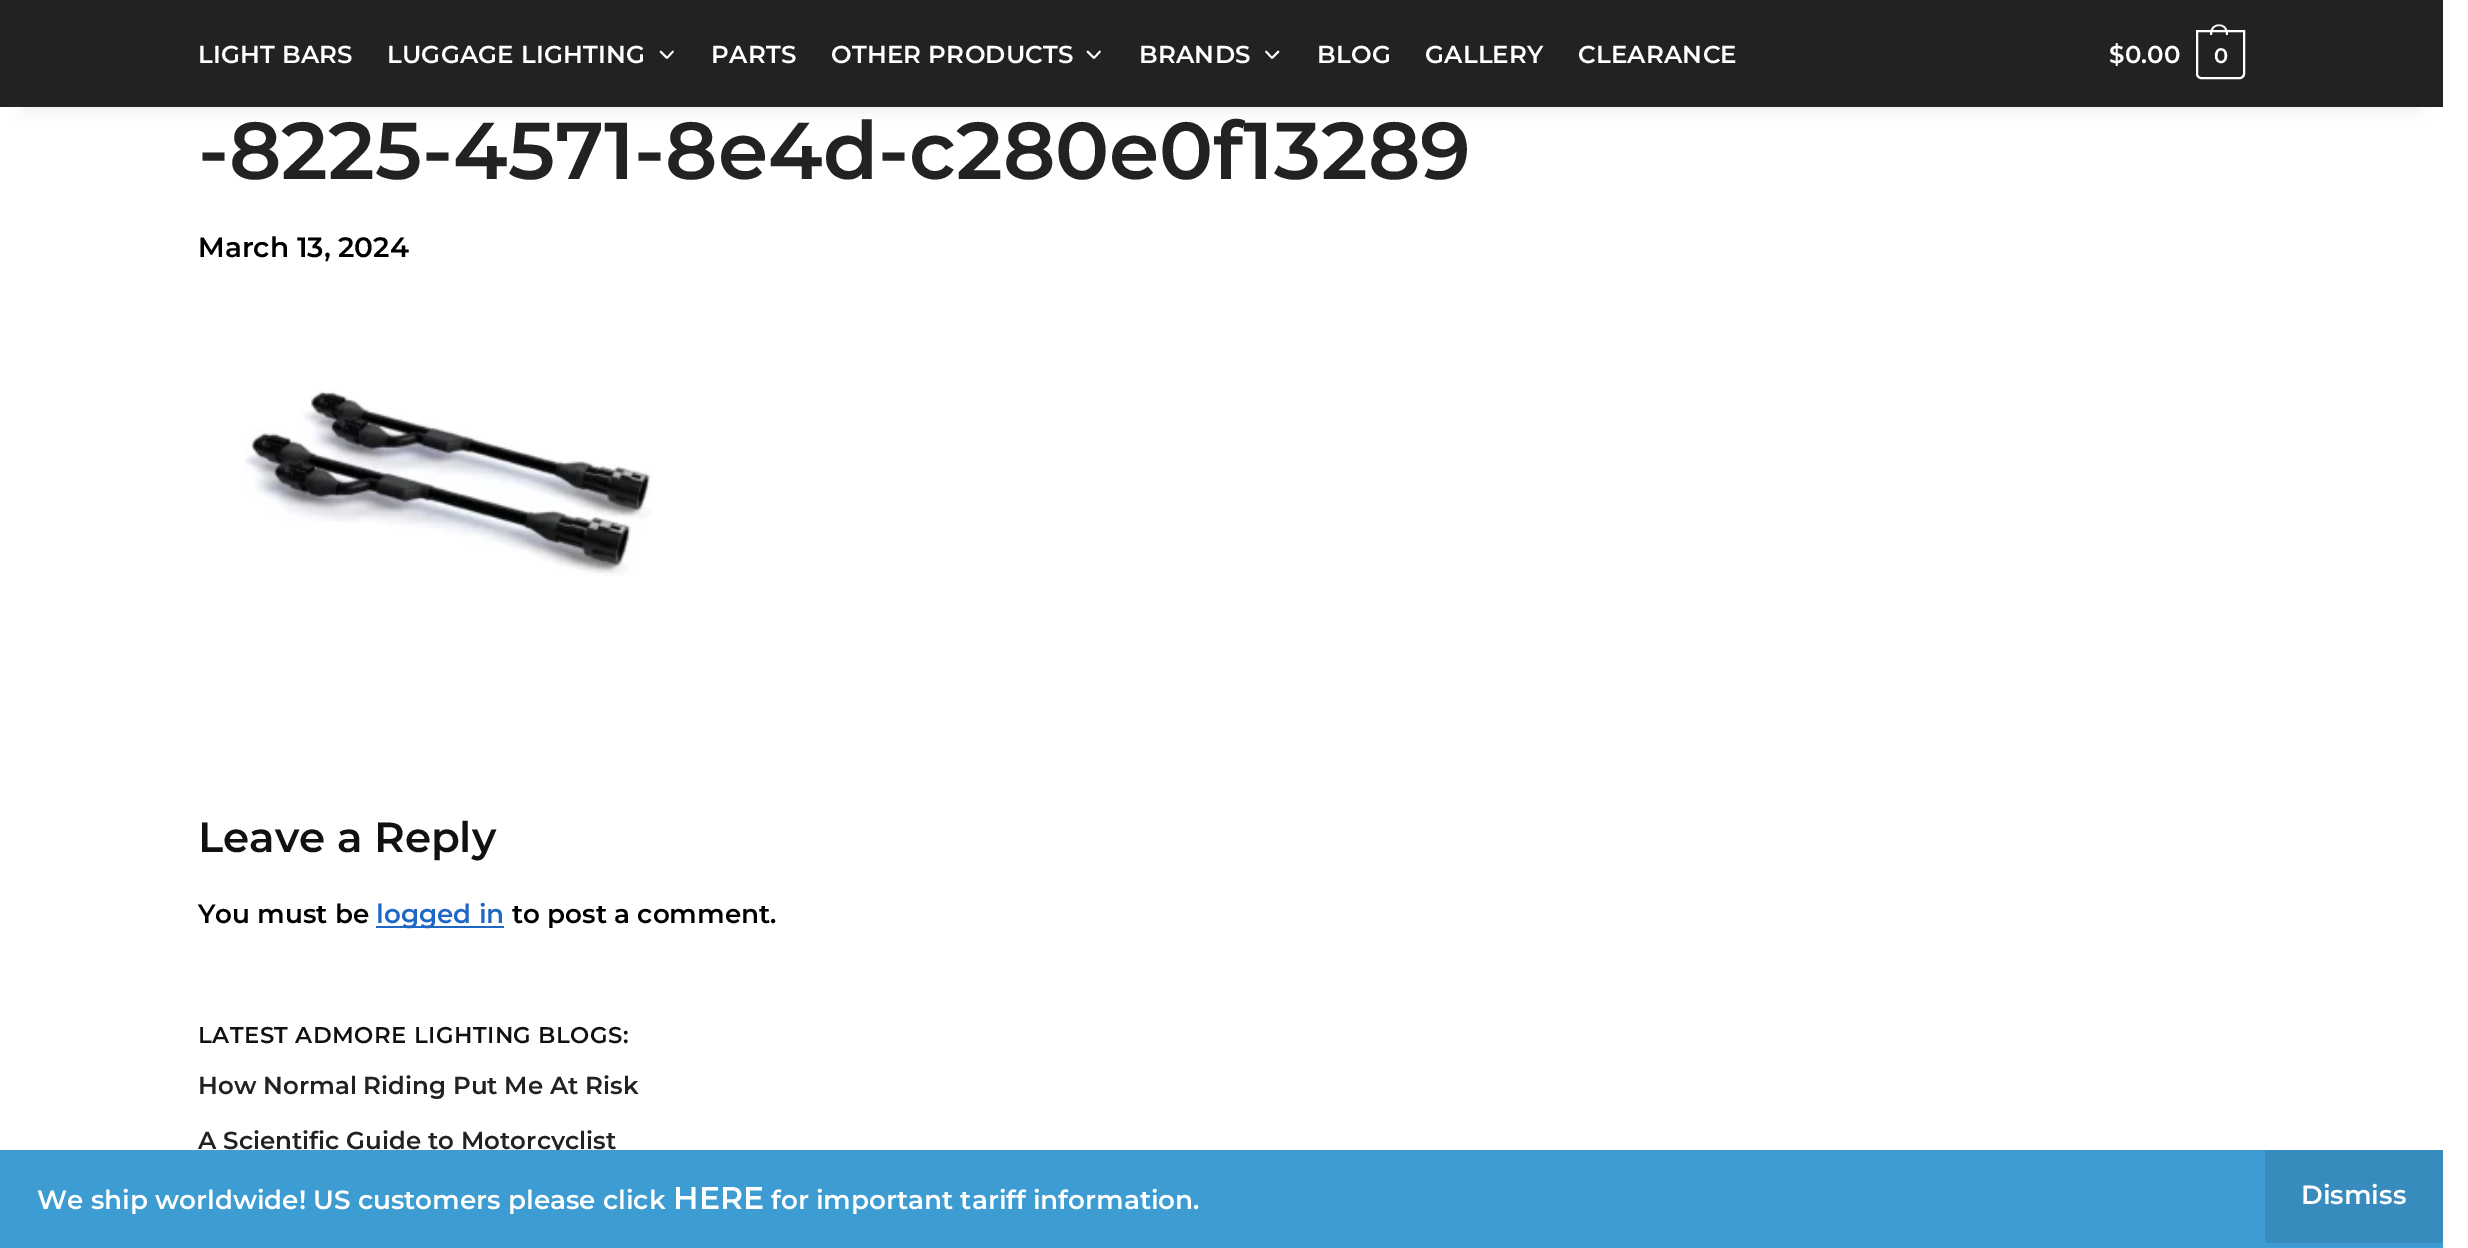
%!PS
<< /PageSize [2468 1248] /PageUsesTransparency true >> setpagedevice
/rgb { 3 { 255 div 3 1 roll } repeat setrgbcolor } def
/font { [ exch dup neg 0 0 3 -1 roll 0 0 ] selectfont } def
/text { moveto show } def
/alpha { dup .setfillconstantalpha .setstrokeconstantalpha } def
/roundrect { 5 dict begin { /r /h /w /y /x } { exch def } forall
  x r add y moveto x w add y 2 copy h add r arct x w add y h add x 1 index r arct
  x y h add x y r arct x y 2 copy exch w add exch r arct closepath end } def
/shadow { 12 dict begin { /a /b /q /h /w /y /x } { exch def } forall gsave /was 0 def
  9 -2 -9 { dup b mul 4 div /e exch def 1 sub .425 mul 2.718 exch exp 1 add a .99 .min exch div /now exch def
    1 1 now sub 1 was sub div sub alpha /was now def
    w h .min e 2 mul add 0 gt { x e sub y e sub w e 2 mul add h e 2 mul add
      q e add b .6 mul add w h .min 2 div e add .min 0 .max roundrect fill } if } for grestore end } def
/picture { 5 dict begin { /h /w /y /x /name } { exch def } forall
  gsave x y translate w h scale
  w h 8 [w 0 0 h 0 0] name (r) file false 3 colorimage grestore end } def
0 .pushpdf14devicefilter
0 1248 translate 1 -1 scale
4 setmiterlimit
255 255 255 rgb
0 0 2468 1248 rectfill
0 0 0 rgb
26 53 2391 54 0 9 0.1 shadow
34 34 34 rgb
0 0 2443 107 rectfill
255 255 255 rgb
1.8 setlinewidth
1 setlinecap
1 setlinejoin
673 51.5 moveto -6 6.5 rlineto -6.5 -6.5 rlineto stroke
1100 51.5 moveto -6 6.5 rlineto -6.5 -6.5 rlineto stroke
1278.5 51.5 moveto -6.5 6.5 rlineto -6 -6.5 rlineto stroke
2 setlinewidth
0 setlinecap
0 setlinejoin
2197 31 moveto 47 0 rlineto 0 43 rlineto 0 2 -2 4 -4 4 rcurveto -39 0 rlineto -2 0 -4 -2 -4 -4 rcurveto closepath stroke
2219 24.5 moveto 6.5 0 9 5 9 10.5 rcurveto -18 0 rlineto 0 -5.5 2.5 -10.5 9 -10.5 rcurveto closepath 2219 26 moveto 5.5 0 7 4.5 7 9 rcurveto -14 0 rlineto 0 -4.5 1.5 -9 7 -9 rcurveto closepath eofill
(img_01.rgb) 244 388 409 188 picture
30 104 196 rgb
376 926 128 2 rectfill
/Montserrat-SemiBold 24.5 font
255 255 255 rgb
198 63 moveto 0.2 0 (LIGHT BARS) ashow
387 63 moveto 0.2 0 (LUGGAGE LIGHTING) ashow
711 63 moveto 0.2 0 (PARTS) ashow
831 63 moveto 0.2 0 (OTHER PRODUCTS) ashow
1139 63 moveto 0.2 0 (BRANDS) ashow
1317 63 moveto 0.2 0 (BLOG) ashow
1425 63 moveto 0.2 0 (GALLERY) ashow
1578 63 moveto 0.2 0 (CLEARANCE) ashow
2109 63 moveto 0.2 0 ($0.00) ashow
/Montserrat-SemiBold 21 font
2214 63 moveto -1 0 (0) ashow
/Montserrat-SemiBold 80.5 font
34 34 34 rgb
(-8225-4571-8e4d-c280e0f13289) 198 179 text
/Montserrat-SemiBold 28 font
0 0 0 rgb
(March 13, 2024) 198 257 text
/Montserrat-SemiBold 42 font
17 17 17 rgb
(Leave a Reply) 198 852 text
/Montserrat-SemiBold 26.25 font
0 0 0 rgb
(You must be) 198 923 text
30 104 196 rgb
(logged in) 376 923 text
0 0 0 rgb
(to post a comment.) 512 923 text
/Montserrat-SemiBold 22.75 font
17 17 17 rgb
198 1043 moveto 0.5 0 (LATEST ADMORE LIGHTING BLOGS:) ashow
/Montserrat-SemiBold 24.5 font
34 34 34 rgb
(How Normal Riding Put Me At Risk) 198 1094 text
(A Scientific Guide to Motorcyclist) 198 1149 text
61 156 210 rgb
0 1150 2443 98 rectfill
/Montserrat-SemiBold 26.25 font
255 255 255 rgb
(We ship worldwide! US customers please click) 37 1209 text
/Montserrat-SemiBold 31.5 font
(HERE) 673 1209 text
/Montserrat-SemiBold 26.25 font
(for important tariff information.) 771 1209 text
55 140 189 rgb
2265 1150 178 93 rectfill
255 255 255 rgb
(Dismiss) 2301 1204 text
.poppdf14devicefilter showpage
